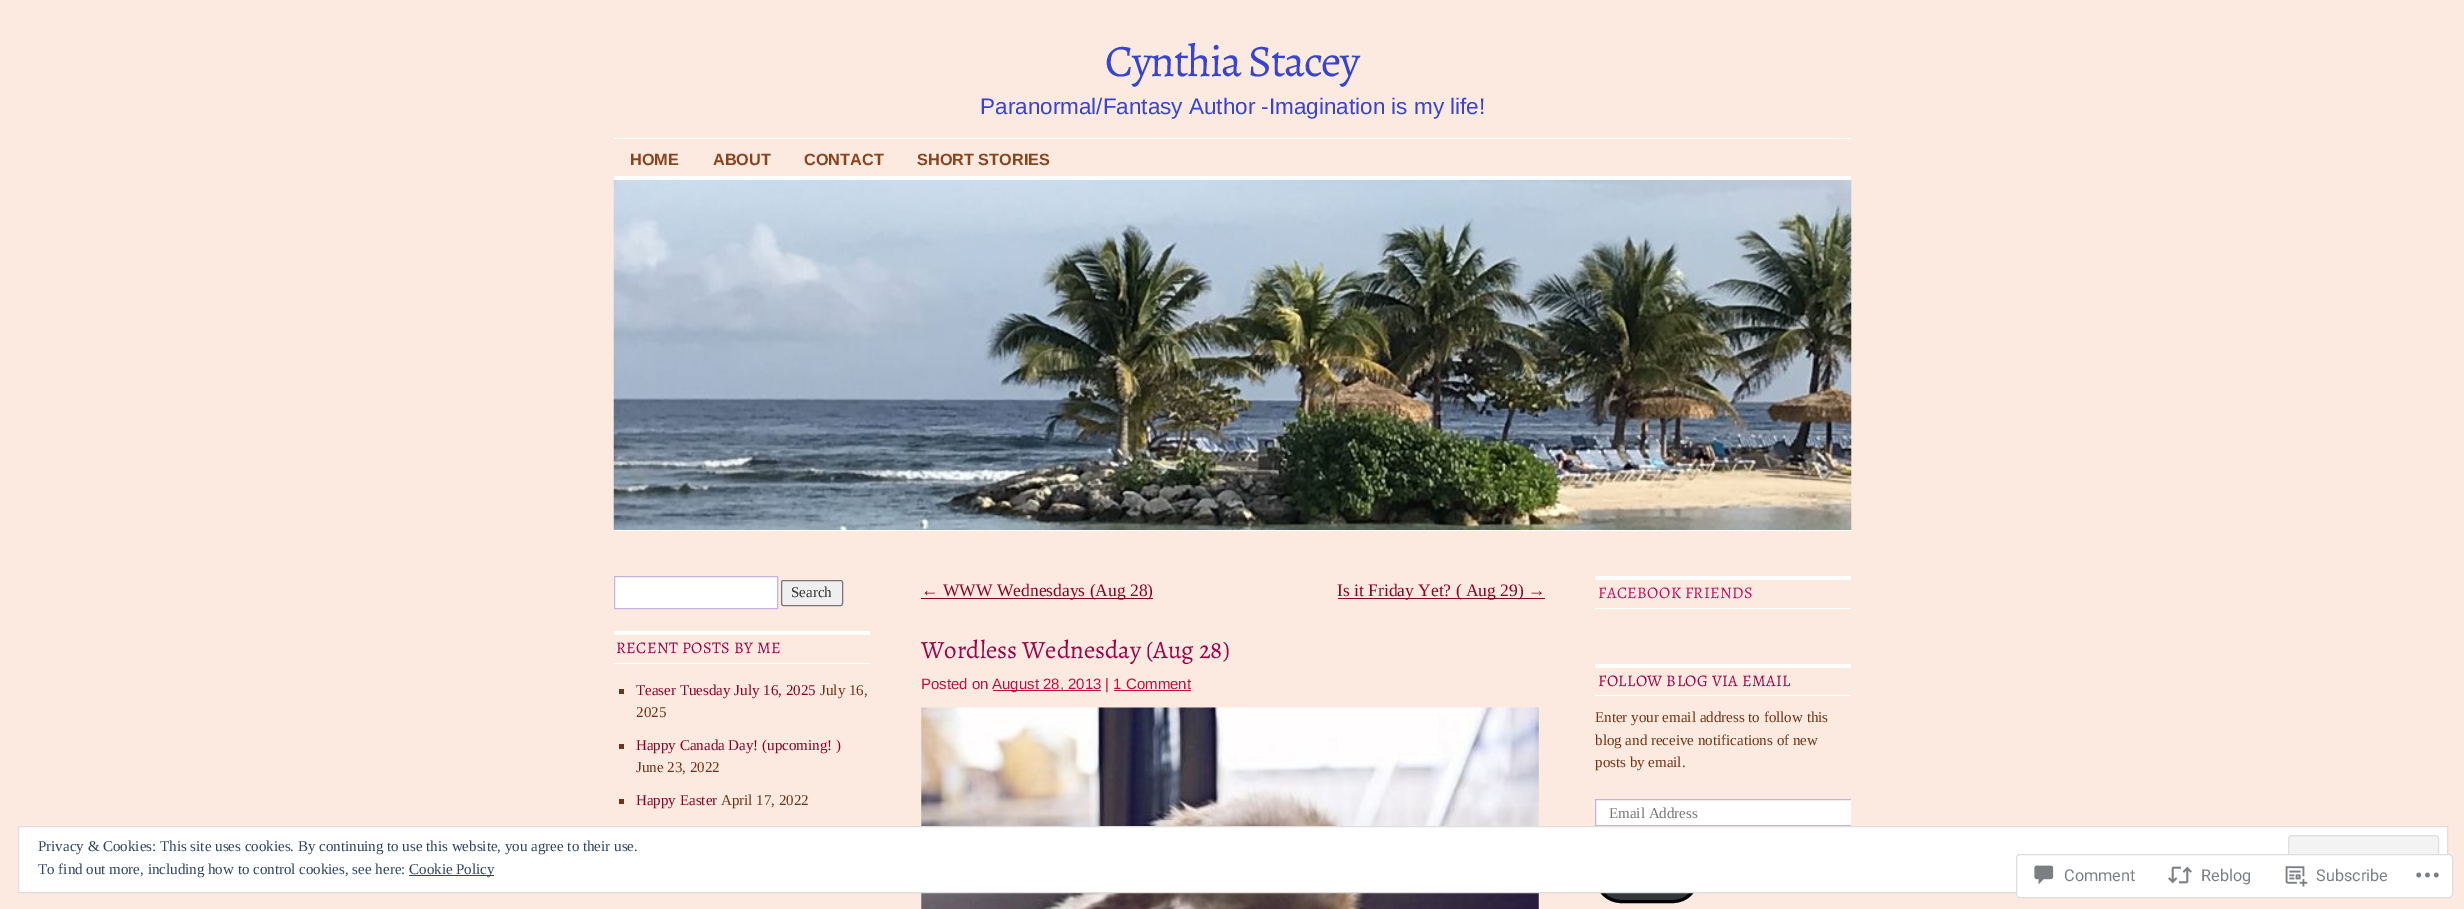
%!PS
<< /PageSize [2464 909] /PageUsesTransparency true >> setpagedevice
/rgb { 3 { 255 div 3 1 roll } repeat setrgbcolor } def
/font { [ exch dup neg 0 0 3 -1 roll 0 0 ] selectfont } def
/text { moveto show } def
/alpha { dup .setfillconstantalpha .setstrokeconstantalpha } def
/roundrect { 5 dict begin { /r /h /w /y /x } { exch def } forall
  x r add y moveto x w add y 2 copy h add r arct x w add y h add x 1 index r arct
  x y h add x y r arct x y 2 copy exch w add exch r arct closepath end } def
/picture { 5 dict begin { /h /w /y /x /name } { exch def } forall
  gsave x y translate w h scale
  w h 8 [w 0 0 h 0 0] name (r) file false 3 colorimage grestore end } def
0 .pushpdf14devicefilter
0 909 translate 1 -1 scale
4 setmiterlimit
252 233 223 rgb
0 0 2464 909 rectfill
255 255 255 rgb
614 138 1237 1 rectfill
614 176 1237 4 rectfill
(img_01.rgb) 613 180 1239 350 picture
614 530 1237 1 rectfill
614.5 576.5 moveto 163 0 rlineto 0 32 rlineto -163 0 rlineto closepath gsave fill grestore
197 178 222 rgb
stroke
239 239 239 rgb
781.5 580.5 61 25 2 roundrect gsave fill grestore
118 118 118 rgb
stroke
255 255 255 rgb
614 631 256 4 rectfill
614 663 256 1 rectfill
111 52 21 rgb
619 689 5 5 rectfill
619 744 5 5 rectfill
619 799 5 5 rectfill
139 2 41 rgb
921 598 232 1 rectfill
1338 598 207 1 rectfill
195 13 65 rgb
993 690 108 1 rectfill
1114 690 77 1 rectfill
(img_02.rgb) 921 707 618 202 picture
255 255 255 rgb
1595 576 256 4 rectfill
1595 608 256 1 rectfill
1595 664 256 4 rectfill
1595 695 256 1 rectfill
1596 800 255 25 rectfill
gsave
1595 576 256 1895 rectclip
197 178 222 rgb
1595.5 799.5 270 26 rectstroke
grestore
50 55 60 rgb
1596.5 852.5 101 49 24.5 roundrect gsave fill grestore
0 0 0 rgb
3 setlinewidth
stroke
255 255 255 rgb
18.5 826.5 moveto 2429 0 rlineto 0 66 rlineto -2429 0 rlineto closepath gsave fill grestore
222 222 222 rgb
1 setlinewidth
stroke
243 243 243 rgb
2288.5 835.5 150 48 3.5 roundrect gsave fill grestore
222 222 222 rgb
stroke
46 68 103 rgb
409 875 85 1 rectfill
0.98 alpha
255 255 255 rgb
2016 854 437 44 4 roundrect fill
220 220 222 rgb
2016.5 854.5 436 43 3.5 roundrect stroke
1 alpha
(img_03.rgb) 2034 865 20 20 picture
(img_04.rgb) 2168 866 24 18 picture
(img_05.rgb) 2285 866 23 21 picture
(img_06.rgb) 2416 872 23 6 picture
/Alegreya-Regular 45 font
55 68 209 rgb
1105 76 moveto -1.4 0 (Cynthia Stacey) ashow
/LiberationSans-Regular 22.5 font
(Paranormal/Fantasy Author -Imagination is my life!) 980 114 text
/LiberationSans-Bold 16.25 font
139 67 28 rgb
(HOME) 630 165 text
(ABOUT) 713 165 text
(CONTACT) 804 165 text
(SHORT STORIES) 917 165 text
/LiberationSerif-Regular 15 font
51 51 51 rgb
(Search) 791 597 text
/Alegreya-Regular 16.25 font
153 4 76 rgb
616 653 moveto 0.4 0 (RECENT POSTS BY ME) ashow
/LiberationSerif-Regular 15 font
139 2 41 rgb
(Teaser Tuesday July 16, 2025) 636 695 text
111 52 21 rgb
(July 16,) 820 695 text
(2025) 636 717 text
139 2 41 rgb
(Happy Canada Day! \(upcoming! \)) 636 750 text
111 52 21 rgb
(June 23, 2022) 636 772 text
139 2 41 rgb
(Happy Easter) 636 805 text
111 52 21 rgb
(April 17, 2022) 721 805 text
/LiberationSerif-Regular 17.5 font
139 2 41 rgb
(← WWW Wednesdays \(Aug 28\)) 921 596 text
(Is it Friday Yet? \( Aug 29\) →) 1337 596 text
/Alegreya-Regular 25 font
153 4 76 rgb
(Wordless Wednesday \(Aug 28\)) 921 658 text
/LiberationSans-Regular 15 font
195 13 65 rgb
(Posted on) 921 689 text
(August 28, 2013 | 1 Comment) 992 689 text
/Alegreya-Regular 16.25 font
192 11 98 rgb
1598 598 moveto 0.4 0 (FACEBOOK FRIENDS) ashow
153 4 76 rgb
1598 686 moveto 0.4 0 (FOLLOW BLOG VIA EMAIL) ashow
/LiberationSerif-Regular 15 font
111 52 21 rgb
(Enter your email address to follow this) 1595 722 text
(blog and receive notifications of new) 1595 745 text
(posts by email.) 1595 767 text
117 117 117 rgb
(Email Address) 1609 818 text
46 68 103 rgb
(Privacy & Cookies: This site uses cookies. By continuing to use this website, you agree to their use.) 38 851 text
(To find out more, including how to control cookies, see here:) 38 874 text
(Cookie Policy) 409 874 text
/Roboto-Regular 16.25 font
123 127 133 rgb
(Comment) 2064 881 text
(Reblog) 2201 881 text
(Subscribe) 2316 881 text
.poppdf14devicefilter showpage
